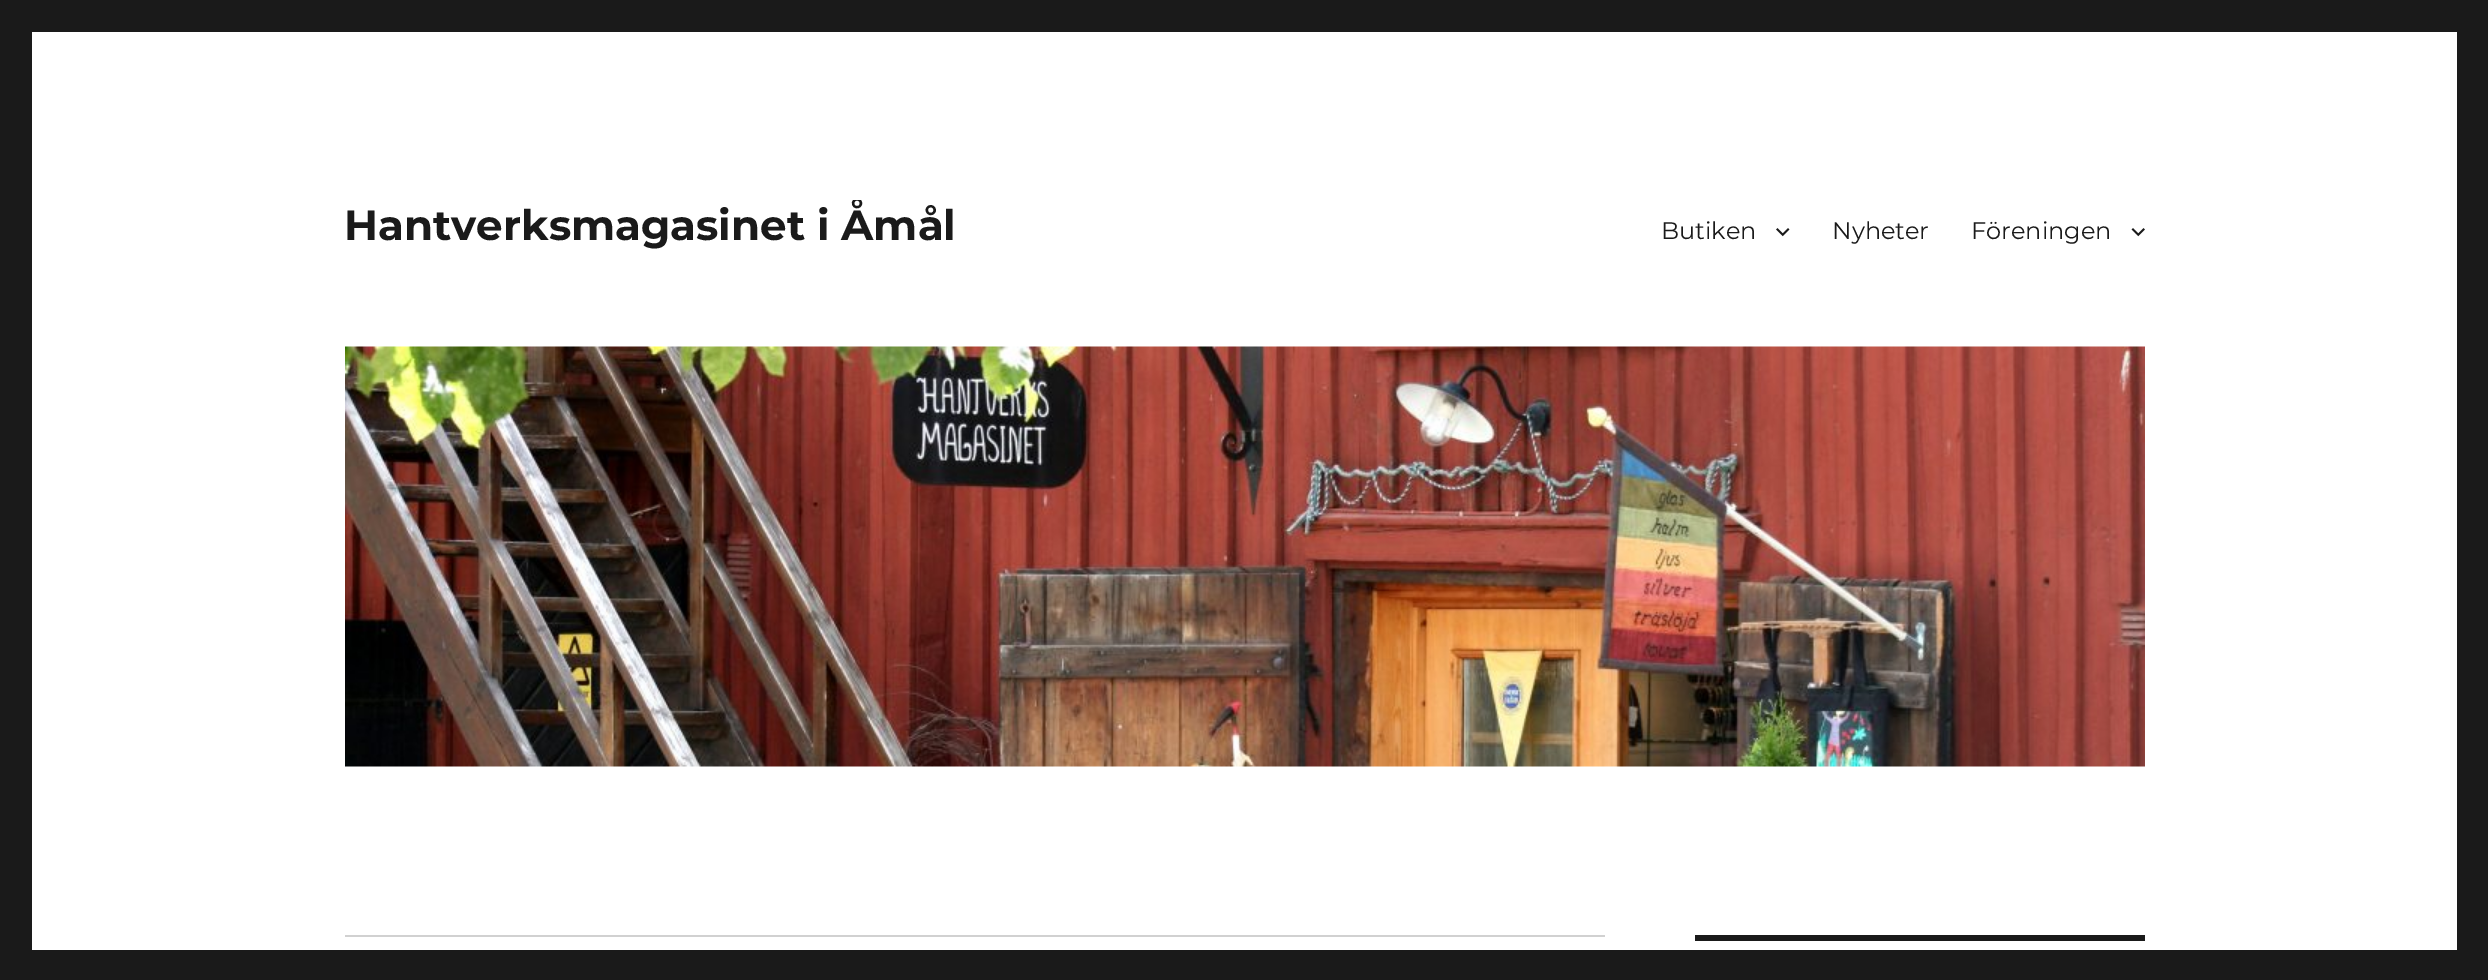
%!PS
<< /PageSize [2488 980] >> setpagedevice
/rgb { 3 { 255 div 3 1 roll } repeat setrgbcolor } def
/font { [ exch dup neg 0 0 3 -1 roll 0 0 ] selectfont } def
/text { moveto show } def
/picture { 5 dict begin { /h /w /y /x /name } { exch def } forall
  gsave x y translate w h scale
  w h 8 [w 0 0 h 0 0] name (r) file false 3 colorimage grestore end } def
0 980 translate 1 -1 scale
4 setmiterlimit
26 26 26 rgb
0 0 2488 980 rectfill
255 255 255 rgb
32 32 2425 918 rectfill
(img_01.rgb) 1776 228 14 9 picture
(img_02.rgb) 2131 228 14 9 picture
(img_03.rgb) 345 346 1800 421 picture
209 209 209 rgb
345 935 1260 2 rectfill
26 26 26 rgb
1695 935 450 6 rectfill
gsave
345 200 612 52 rectclip
/Montserrat-Thin 42 font
(Hantverksmagasinet i Åmål) 344 240 text
grestore
/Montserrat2-Thin 24 font
(Butiken) 1661 239 text
(Nyheter) 1832 239 text
(Föreningen) 1971 239 text
showpage
